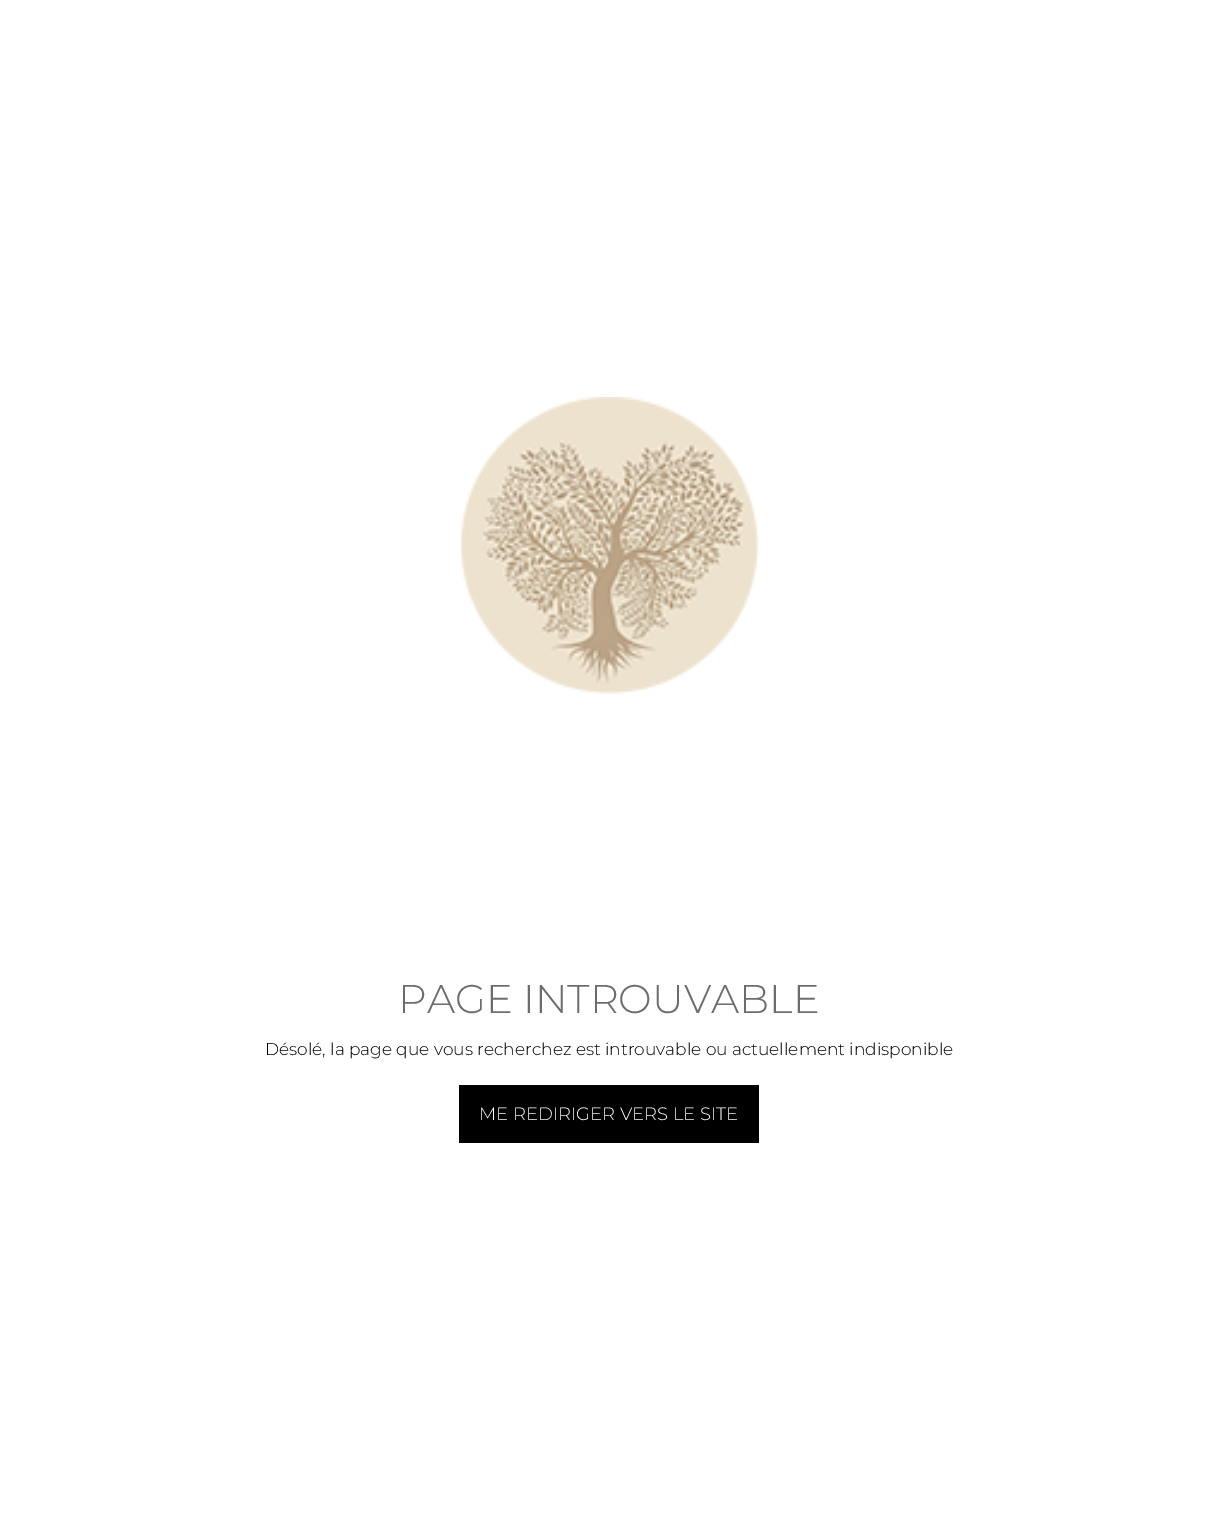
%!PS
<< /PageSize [1218 1525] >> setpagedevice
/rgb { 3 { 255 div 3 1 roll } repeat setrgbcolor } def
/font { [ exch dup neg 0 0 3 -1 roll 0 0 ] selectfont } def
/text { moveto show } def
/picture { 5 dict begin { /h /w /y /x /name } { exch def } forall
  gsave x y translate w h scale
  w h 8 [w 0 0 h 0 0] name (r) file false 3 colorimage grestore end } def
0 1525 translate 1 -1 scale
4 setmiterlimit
255 255 255 rgb
0 0 1218 1525 rectfill
(img_01.rgb) 460 397 299 297 picture
0 0 0 rgb
459 1085 300 58 rectfill
/Montserrat-Light 40 font
108 108 108 rgb
(PAGE INTROUVABLE) 398 1013 text
/Montserrat-Light 17 font
0 0 0 rgb
(Désolé, la page que vous recherchez est introuvable ou actuellement indisponible) 265 1055 text
/Montserrat-Light 18 font
255 255 255 rgb
(ME REDIRIGER VERS LE SITE) 479 1120 text
showpage
